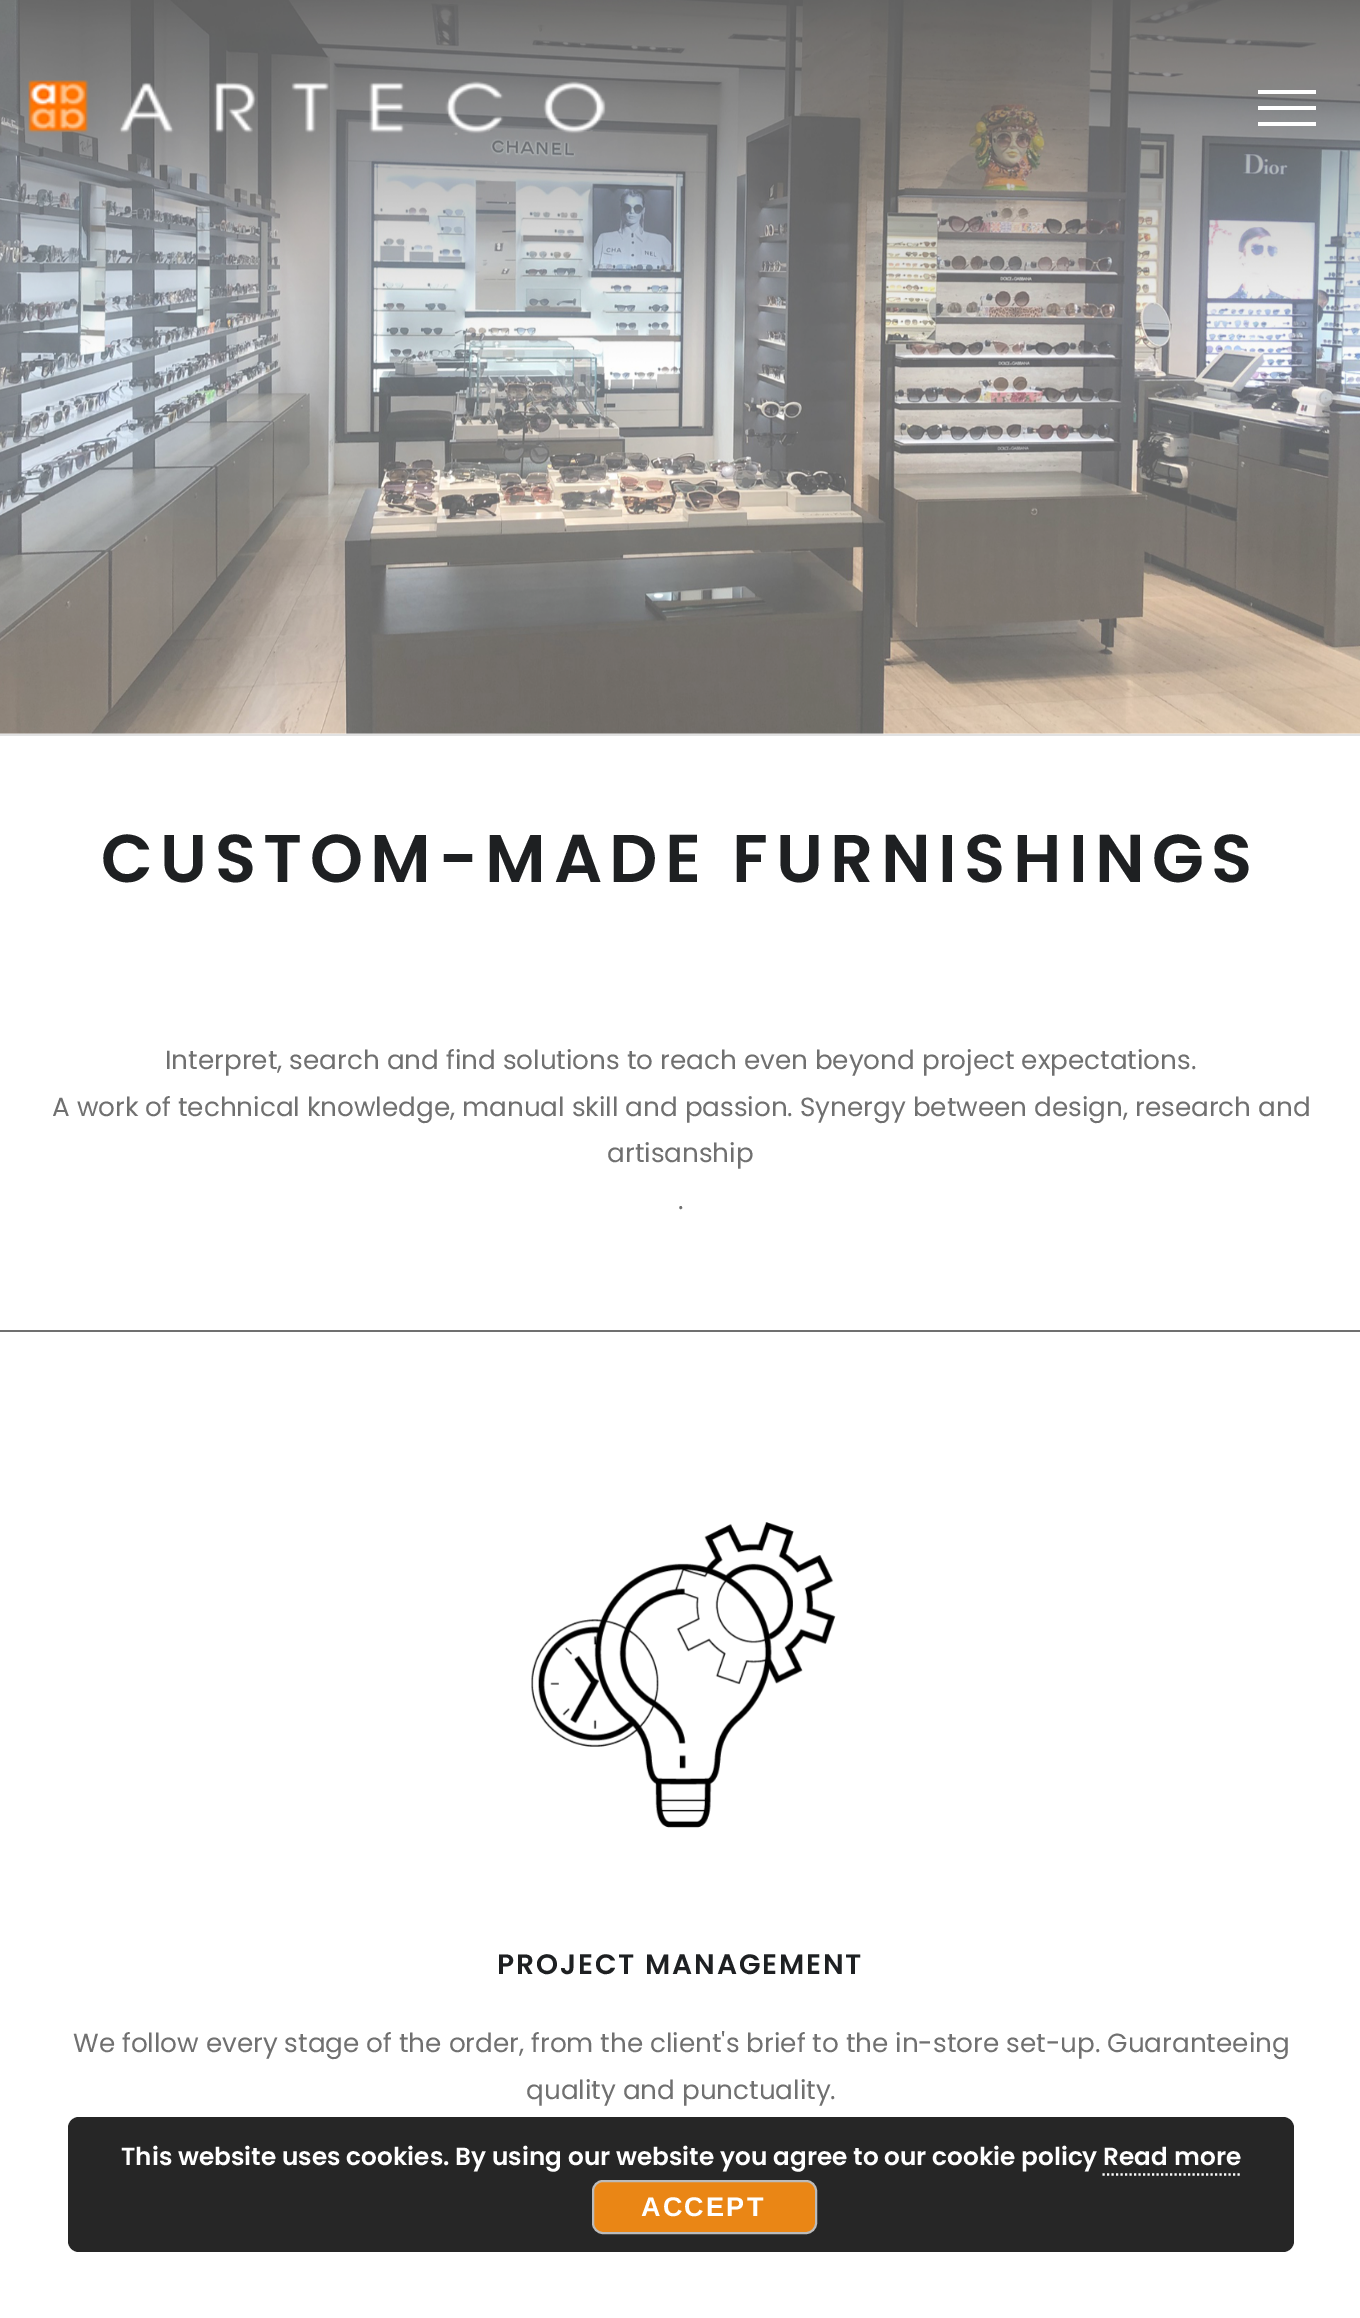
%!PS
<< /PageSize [1360 2318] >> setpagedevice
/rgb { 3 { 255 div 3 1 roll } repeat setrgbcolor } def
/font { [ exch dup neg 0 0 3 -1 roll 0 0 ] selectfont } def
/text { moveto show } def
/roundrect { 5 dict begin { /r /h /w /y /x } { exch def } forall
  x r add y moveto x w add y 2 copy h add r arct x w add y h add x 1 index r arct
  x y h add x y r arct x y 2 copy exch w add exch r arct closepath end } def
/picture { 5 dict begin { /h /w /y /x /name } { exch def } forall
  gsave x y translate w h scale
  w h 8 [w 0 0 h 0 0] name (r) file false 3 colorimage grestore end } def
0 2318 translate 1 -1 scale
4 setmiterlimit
255 255 255 rgb
0 0 1360 2318 rectfill
(img_02.rgb) 0 0 1360 734 picture
(img_01.rgb) 28 80 578 54 picture
1258 90 58 4 rectfill
1258 122 58 4 rectfill
1258 106 58 4 rectfill
226 226 226 rgb
0 734 1360 2 rectfill
112 112 112 rgb
0 1330 1360 2 rectfill
(img_03.rgb) 531 1522 305 306 picture
38 38 38 rgb
68 2117 1226 135 11 roundrect fill
255 255 255 rgb
2.2 setlinewidth
[2.25 2.25] 0 setdash
1102.5 2174.5 moveto 139.5 0 rlineto stroke
234 134 21 rgb
593 2181 223 52 10 roundrect gsave fill grestore
187 187 187 rgb
2 setlinewidth
[] 0 setdash
stroke
/Poppins-SemiBold 67.5 font
30 32 34 rgb
101 882 moveto 7.5 0 (CUSTOM-MADE FURNISHINGS) ashow
/Poppins-Regular 26.25 font
112 112 112 rgb
(Interpret, search and find solutions to reach even beyond project expectations.) 165 1069 text
(A work of technical knowledge, manual skill and passion. Synergy between design, research and) 52 1116 text
(artisanship) 607 1162 text
(.) 678 1209 text
/Poppins-SemiBold 28.1 font
30 32 34 rgb
497 1974 moveto 1.9 0 (PROJECT MANAGEMENT) ashow
/Poppins-Regular 26.25 font
112 112 112 rgb
(We follow every stage of the order, from the client's brief to the in-store set-up. Guaranteeing) 73 2052 text
(quality and punctuality.) 526 2099 text
/Poppins-SemiBold 24.75 font
255 255 255 rgb
(This website uses cookies. By using our website you agree to our cookie policy Read more) 121 2165 text
/LiberationSans-Bold 27 font
641 2216 moveto 2.25 0 (ACCEPT) ashow
showpage
